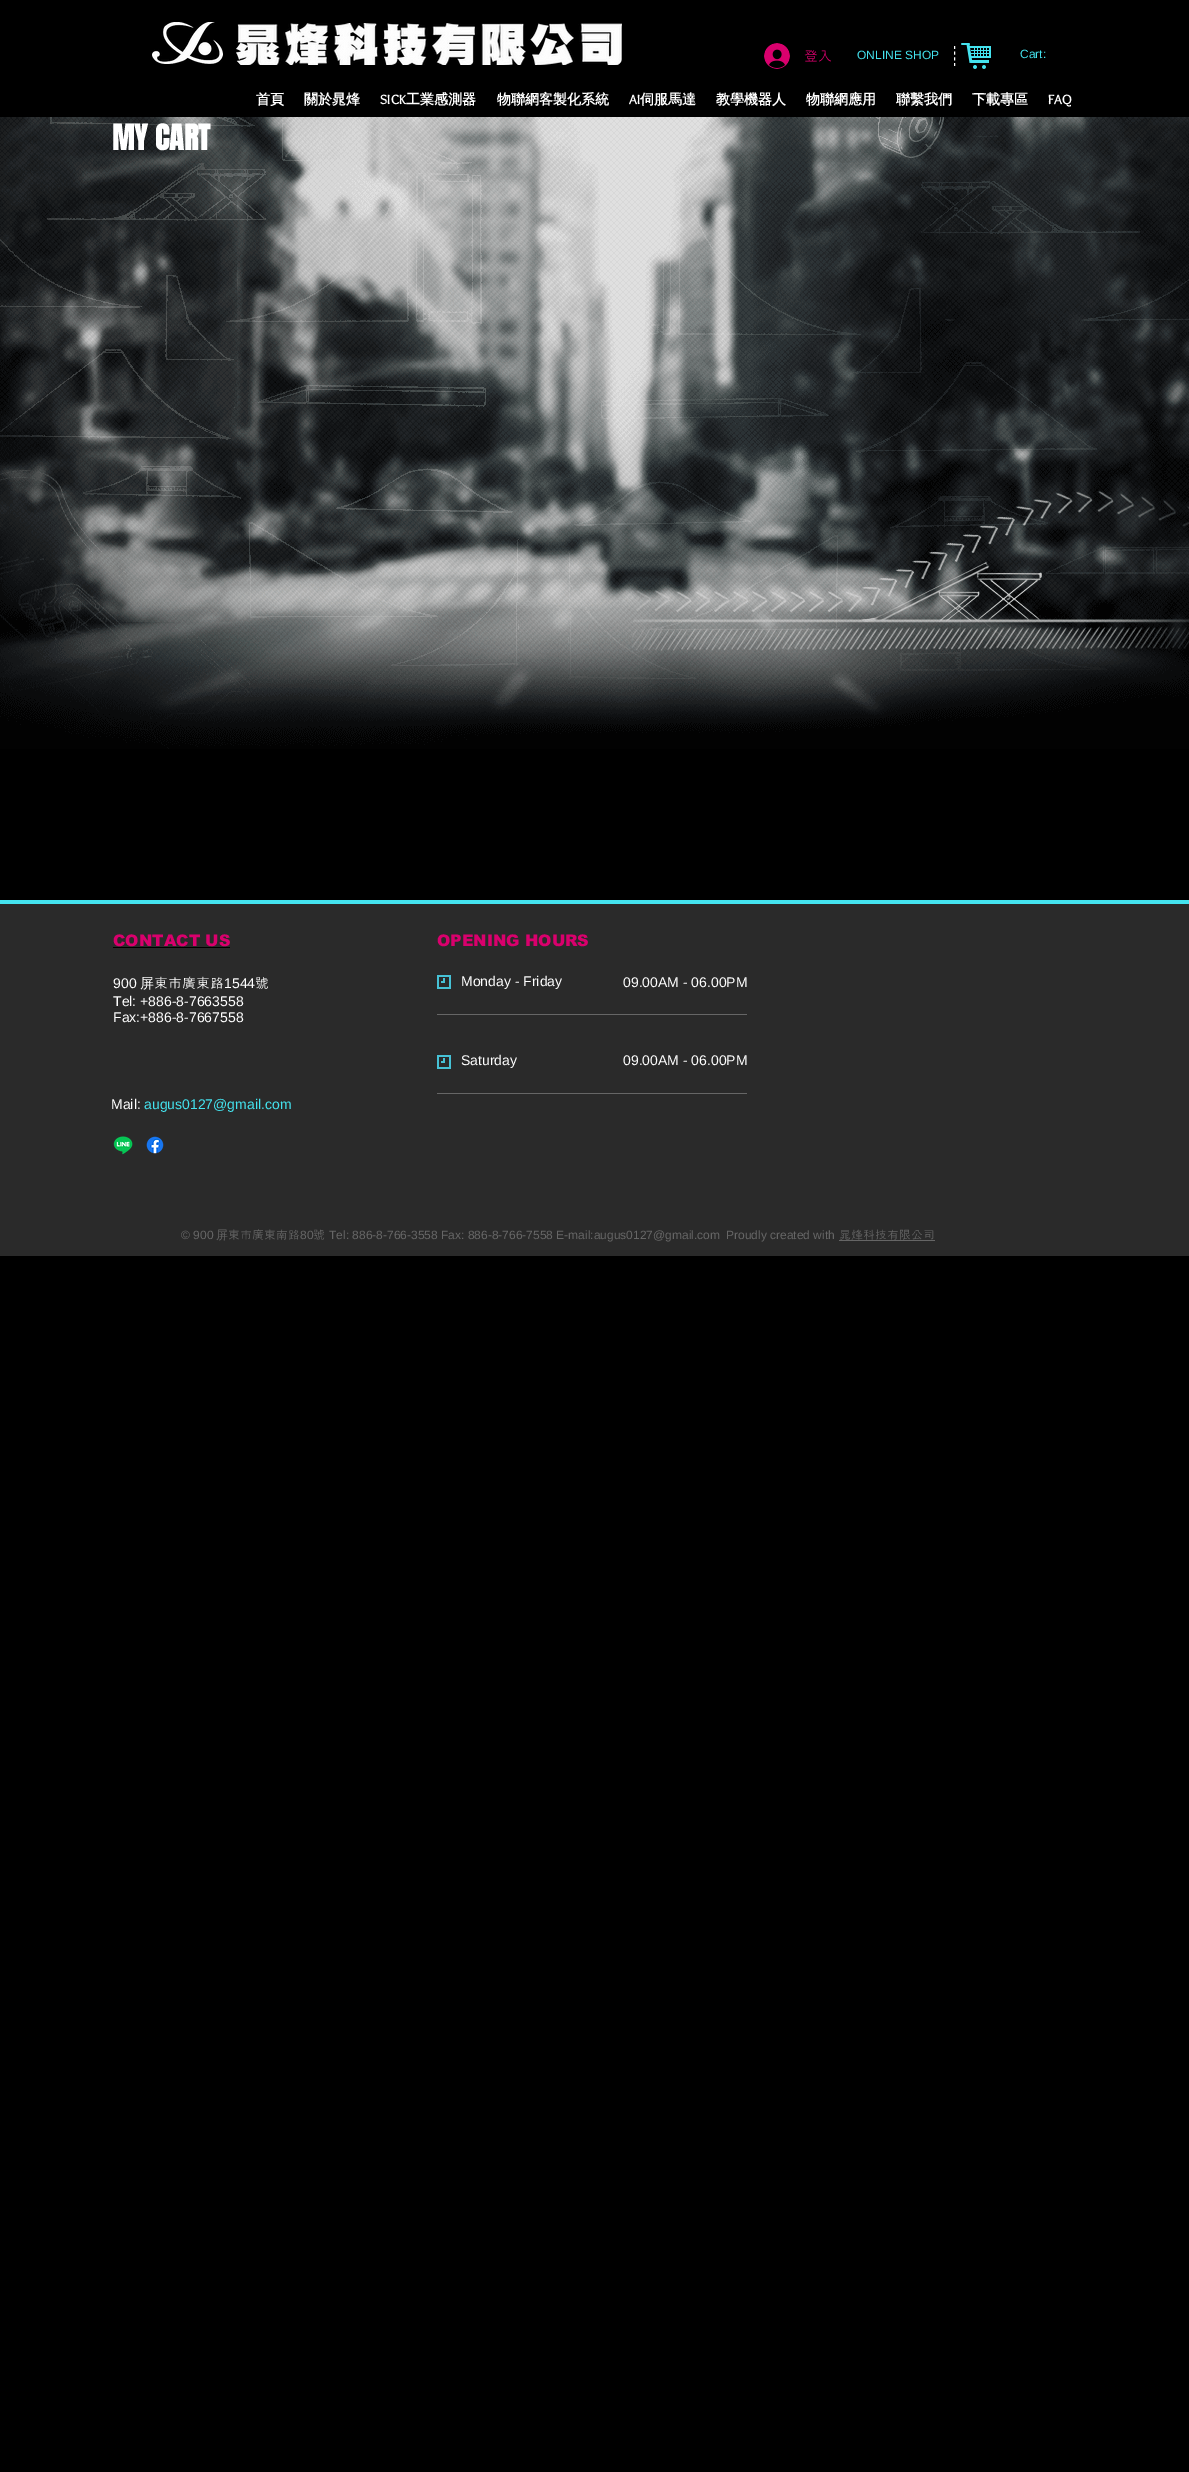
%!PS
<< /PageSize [1189 2472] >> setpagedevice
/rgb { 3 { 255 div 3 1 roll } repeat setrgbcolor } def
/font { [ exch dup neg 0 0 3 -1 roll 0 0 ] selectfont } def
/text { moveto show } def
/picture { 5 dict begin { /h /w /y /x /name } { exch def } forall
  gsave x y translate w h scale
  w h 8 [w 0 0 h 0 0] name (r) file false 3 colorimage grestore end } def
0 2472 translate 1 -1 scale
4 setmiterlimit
0 0 0 rgb
0 0 1189 2472 rectfill
(img_01.rgb) 152 22 71 42 picture
(img_02.rgb) 236 23 386 42 picture
(img_03.rgb) 764 43 26 26 picture
255 255 255 rgb
[3 2.67] 0 setdash
954.5 46 moveto 0 20 rlineto stroke
(img_04.rgb) 961 43 30 26 picture
42 42 42 rgb
0 904 1189 352 rectfill
68 227 239 rgb
0 900 1189 4 rectfill
0 0 0 rgb
113 947 117 1 rectfill
(img_05.rgb) 437 975 14 14 picture
102 102 102 rgb
437 1014 310 1 rectfill
(img_05.rgb) 437 1055 14 14 picture
437 1093 310 1 rectfill
(img_06.rgb) 113 1136 20 19 picture
(img_07.rgb) 146 1136 18 18 picture
839 1240 96 1 rectfill
(img_08.rgb) 0 117 1189 632 picture
/Dotum-Regular 14 font
217 0 109 rgb
(登入) 804 61 text
/LiberationSans-Regular 12 font
68 227 239 rgb
(ONLINE SHOP) 857 59 text
(Cart:) 1020 58 text
/WenQuanYiZenHei-Bold 14 font
255 255 255 rgb
(首頁) 256 104 text
(關於晁烽) 304 104 text
/Overlock-Bold 14 font
(SICK) 380 104 text
/WenQuanYiZenHei-Bold 14 font
(工業感測器) 406 104 text
(物聯網客製化系統) 497 104 text
/Overlock-Bold 14 font
(AI) 629 104 text
/WenQuanYiZenHei-Bold 14 font
(伺服馬達) 640 104 text
(教學機器人) 716 104 text
(物聯網應用) 806 104 text
(聯繫我們) 896 104 text
(下載專區) 972 104 text
/Overlock-Bold 14 font
(FAQ) 1048 104 text
/Anton-Bold 30 font
(MY CART) 112 150 text
/arial-Black 16 font
217 0 109 rgb
(CONTACT US) 113 946 text
(OPENING HOURS) 437 946 text
/LiberationSans-Regular 14 font
255 255 255 rgb
(900) 113 988 text
/WenQuanYiZenHei-Medium 14 font
(屏) 140 988 text
/Dotum-Regular 14 font
(東市廣東路) 154 988 text
/LiberationSans-Regular 14 font
(1544) 224 988 text
/Dotum-Regular 14 font
(號) 255 988 text
/LiberationSans-Regular 14 font
(Tel: +886-8-7663558) 113 1006 text
(Fax:+886-8-7667558) 113 1022 text
(Monday - Friday) 461 986 text
(09.00AM - 06.00PM) 623 987 text
(Saturday) 461 1065 text
(09.00AM - 06.00PM) 623 1065 text
(Mail:) 111 1109 text
68 227 239 rgb
(augus0127@gmail.com) 144 1109 text
/LiberationSans-Regular 12 font
102 102 102 rgb
(© 900) 181 1239 text
/WenQuanYiZenHei-Medium 12 font
(屏) 216 1239 text
/Dotum-Regular 12 font
(東市廣東南路) 228 1239 text
/LiberationSans-Regular 12 font
(80) 300 1239 text
/Dotum-Regular 12 font
(號) 313 1239 text
/LiberationSans-Regular 12 font
(Tel: 886-8-766-3558 Fax: 886-8-766-7558 E-mail:augus0127@gmail.com) 329 1239 text
(Proudly created with) 726 1239 text
/Dotum-Regular 12 font
(晁烽科技有限公司) 839 1239 text
showpage
